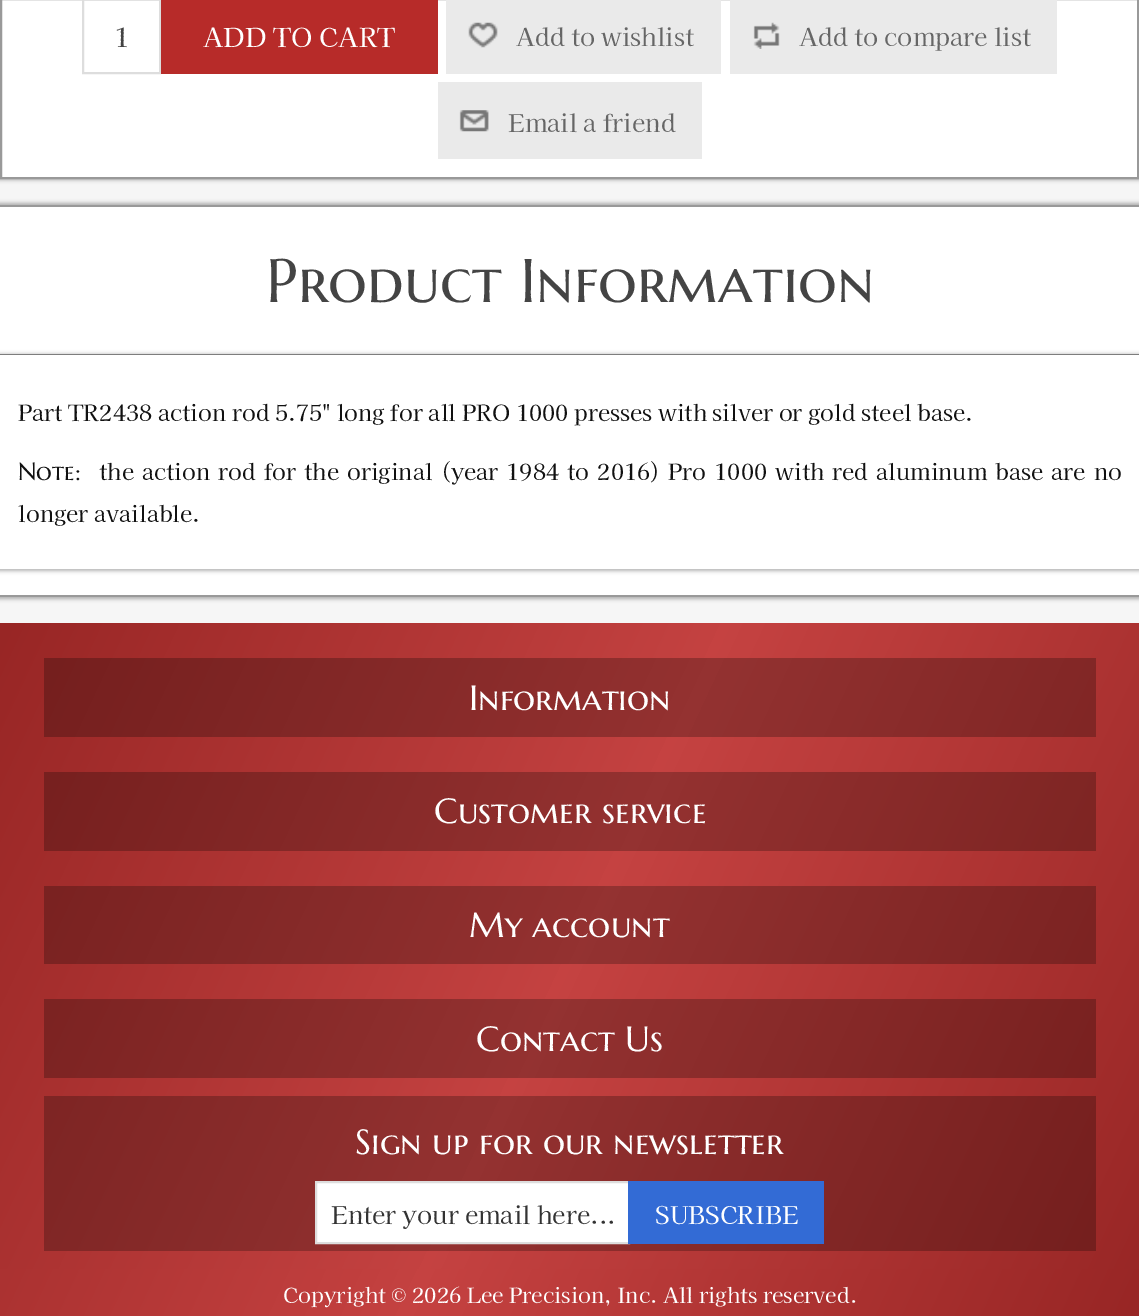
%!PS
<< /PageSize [1139 1316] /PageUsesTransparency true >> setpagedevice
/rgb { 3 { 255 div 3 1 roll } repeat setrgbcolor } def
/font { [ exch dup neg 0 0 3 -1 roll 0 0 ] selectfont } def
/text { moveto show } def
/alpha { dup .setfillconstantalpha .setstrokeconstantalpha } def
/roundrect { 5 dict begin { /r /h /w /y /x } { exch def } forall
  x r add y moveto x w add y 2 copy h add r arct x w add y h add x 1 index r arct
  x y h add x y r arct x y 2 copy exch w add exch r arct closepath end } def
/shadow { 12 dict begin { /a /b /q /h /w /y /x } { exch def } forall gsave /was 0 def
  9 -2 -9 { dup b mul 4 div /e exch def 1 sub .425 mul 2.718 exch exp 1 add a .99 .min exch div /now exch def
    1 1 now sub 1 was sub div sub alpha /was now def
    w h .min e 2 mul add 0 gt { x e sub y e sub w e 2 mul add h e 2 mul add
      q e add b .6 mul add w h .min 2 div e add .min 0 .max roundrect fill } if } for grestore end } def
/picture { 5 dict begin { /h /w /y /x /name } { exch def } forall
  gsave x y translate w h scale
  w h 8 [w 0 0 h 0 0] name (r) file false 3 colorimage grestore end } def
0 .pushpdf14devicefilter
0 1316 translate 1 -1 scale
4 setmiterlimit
246 246 246 rgb
0 0 1139 1316 rectfill
0 0 0 rgb
-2 -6 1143 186 0 2 0.3 shadow
255 255 255 rgb
1 -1 moveto 1137 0 rlineto 0 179 rlineto -1137 0 rlineto closepath gsave fill grestore
153 153 153 rgb
2 setlinewidth
stroke
221 221 221 rgb
83 -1 77 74 rectstroke
183 43 41 rgb
161 0 277 74 rectfill
234 234 234 rgb
446 0 275 74 rectfill
(img_01.rgb) 468 22 30 26 picture
730 0 327 74 rectfill
(img_02.rgb) 753 22 27 27 picture
438 82 264 77 rectfill
(img_03.rgb) 459 110 30 22 picture
0 0 0 rgb
-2 203 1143 396 0 2 0.3 shadow
255 255 255 rgb
0 207 1139 388 rectfill
153 153 153 rgb
0 205 1139 2 rectfill
0 595 1139 2 rectfill
0 354 1139 1 rectfill
0 0 0 rgb
-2 354 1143 217 0 2 0.3 shadow
255 255 255 rgb
0 355 1139 214 rectfill
gsave 0 1269 moveto 1139 0 rlineto 0 47 rlineto -1139 0 rlineto closepath clip newpath
<< /ShadingType 2 /ColorSpace /DeviceRGB /Coords [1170 1250 -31 689] /Extend [true true] /Function << /FunctionType 3 /Domain [0 1] /Functions [<< /FunctionType 2 /Domain [0 1] /C0 [0.596 0.149 0.145] /C1 [0.773 0.259 0.255] /N 1 >> << /FunctionType 2 /Domain [0 1] /C0 [0.773 0.259 0.255] /C1 [0.596 0.149 0.145] /N 1 >>] /Bounds [0.5] /Encode [0 1 0 1] >> >> shfill grestore
gsave 0 623 moveto 1139 0 rlineto 0 646 rlineto -1139 0 rlineto closepath clip newpath
<< /ShadingType 2 /ColorSpace /DeviceRGB /Coords [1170 1250 -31 689] /Extend [true true] /Function << /FunctionType 3 /Domain [0 1] /Functions [<< /FunctionType 2 /Domain [0 1] /C0 [0.596 0.149 0.145] /C1 [0.773 0.259 0.255] /N 1 >> << /FunctionType 2 /Domain [0 1] /C0 [0.773 0.259 0.255] /C1 [0.596 0.149 0.145] /N 1 >>] /Bounds [0.5] /Encode [0 1 0 1] >> >> shfill grestore
gsave 44 1096 moveto 1052 0 rlineto 0 155 rlineto -1052 0 rlineto closepath clip newpath
<< /ShadingType 2 /ColorSpace /DeviceRGB /Coords [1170 1250 -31 689] /Extend [true true] /Function << /FunctionType 3 /Domain [0 1] /Functions [<< /FunctionType 2 /Domain [0 1] /C0 [0.447 0.114 0.11] /C1 [0.58 0.196 0.192] /N 1 >> << /FunctionType 2 /Domain [0 1] /C0 [0.58 0.196 0.192] /C1 [0.447 0.114 0.11] /N 1 >>] /Bounds [0.5] /Encode [0 1 0 1] >> >> shfill grestore
gsave 44 999 moveto 1052 0 rlineto 0 79 rlineto -1052 0 rlineto closepath clip newpath
<< /ShadingType 2 /ColorSpace /DeviceRGB /Coords [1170 1250 -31 689] /Extend [true true] /Function << /FunctionType 3 /Domain [0 1] /Functions [<< /FunctionType 2 /Domain [0 1] /C0 [0.447 0.114 0.11] /C1 [0.58 0.196 0.192] /N 1 >> << /FunctionType 2 /Domain [0 1] /C0 [0.58 0.196 0.192] /C1 [0.447 0.114 0.11] /N 1 >>] /Bounds [0.5] /Encode [0 1 0 1] >> >> shfill grestore
gsave 44 886 moveto 1052 0 rlineto 0 78 rlineto -1052 0 rlineto closepath clip newpath
<< /ShadingType 2 /ColorSpace /DeviceRGB /Coords [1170 1250 -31 689] /Extend [true true] /Function << /FunctionType 3 /Domain [0 1] /Functions [<< /FunctionType 2 /Domain [0 1] /C0 [0.447 0.114 0.11] /C1 [0.58 0.196 0.192] /N 1 >> << /FunctionType 2 /Domain [0 1] /C0 [0.58 0.196 0.192] /C1 [0.447 0.114 0.11] /N 1 >>] /Bounds [0.5] /Encode [0 1 0 1] >> >> shfill grestore
gsave 44 772 moveto 1052 0 rlineto 0 79 rlineto -1052 0 rlineto closepath clip newpath
<< /ShadingType 2 /ColorSpace /DeviceRGB /Coords [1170 1250 -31 689] /Extend [true true] /Function << /FunctionType 3 /Domain [0 1] /Functions [<< /FunctionType 2 /Domain [0 1] /C0 [0.447 0.114 0.11] /C1 [0.58 0.196 0.192] /N 1 >> << /FunctionType 2 /Domain [0 1] /C0 [0.58 0.196 0.192] /C1 [0.447 0.114 0.11] /N 1 >>] /Bounds [0.5] /Encode [0 1 0 1] >> >> shfill grestore
gsave 44 658 moveto 1052 0 rlineto 0 79 rlineto -1052 0 rlineto closepath clip newpath
<< /ShadingType 2 /ColorSpace /DeviceRGB /Coords [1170 1250 -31 689] /Extend [true true] /Function << /FunctionType 3 /Domain [0 1] /Functions [<< /FunctionType 2 /Domain [0 1] /C0 [0.447 0.114 0.11] /C1 [0.58 0.196 0.192] /N 1 >> << /FunctionType 2 /Domain [0 1] /C0 [0.58 0.196 0.192] /C1 [0.447 0.114 0.11] /N 1 >>] /Bounds [0.5] /Encode [0 1 0 1] >> >> shfill grestore
316 1182 moveto 313 0 rlineto 0 61 rlineto -313 0 rlineto closepath gsave fill grestore
221 221 221 rgb
stroke
51 107 213 rgb
628 1181 196 63 rectfill
/KaiseiDecol-Regular 26.25 font
68 68 68 rgb
(1) 114 47 text
255 255 255 rgb
(ADD TO CART) 203 47 text
/KaiseiDecol-Regular 24.5 font
102 102 102 rgb
(Add to wishlist) 516 46 text
(Add to compare list) 799 46 text
(Email a friend) 508 132 text
/MarcellusSC-Regular 61.5 font
68 68 68 rgb
(Product Information) 266 302 text
/KaiseiDecol-Regular 22.4 font
17 17 17 rgb
(Part TR2438 action rod 5.75" long for all PRO 1000 presses with silver or gold steel base.) 18 421 text
/MarcellusSC-Regular 25 font
(Note:) 18 480 text
/KaiseiDecol-Regular 22.4 font
99 480 moveto 2.4 0 32 (the action rod for the original \(year 1984 to 2016\) Pro 1000 with red aluminum base are no) widthshow
(longer available.) 18 522 text
/MarcellusSC-Regular 35 font
255 255 255 rgb
(Information) 469 710 text
(Customer service) 434 823 text
(My account) 469 937 text
(Contact Us) 476 1051 text
(Sign up for our newsletter) 355 1154 text
/KaiseiDecol-Regular 24.5 font
51 51 51 rgb
(Enter your email here...) 331 1224 text
255 255 255 rgb
(SUBSCRIBE) 655 1224 text
/KaiseiDecol-Regular 21 font
(Copyright © 2026 Lee Precision, Inc. All rights reserved.) 283 1303 text
.poppdf14devicefilter showpage
